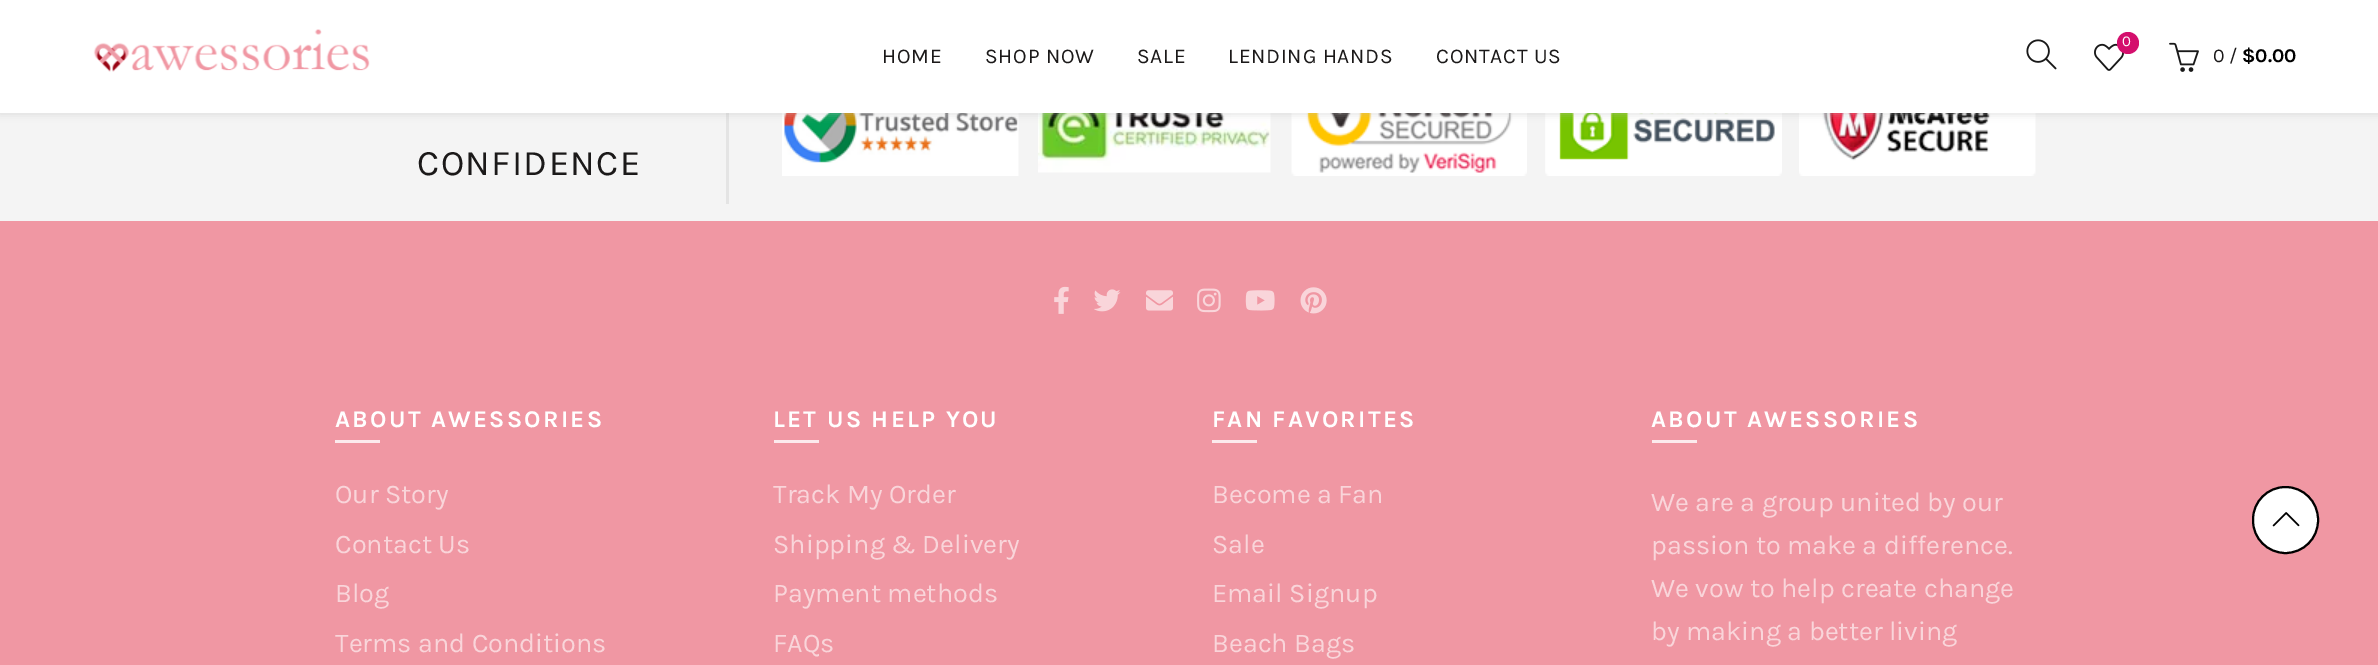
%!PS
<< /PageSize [2378 665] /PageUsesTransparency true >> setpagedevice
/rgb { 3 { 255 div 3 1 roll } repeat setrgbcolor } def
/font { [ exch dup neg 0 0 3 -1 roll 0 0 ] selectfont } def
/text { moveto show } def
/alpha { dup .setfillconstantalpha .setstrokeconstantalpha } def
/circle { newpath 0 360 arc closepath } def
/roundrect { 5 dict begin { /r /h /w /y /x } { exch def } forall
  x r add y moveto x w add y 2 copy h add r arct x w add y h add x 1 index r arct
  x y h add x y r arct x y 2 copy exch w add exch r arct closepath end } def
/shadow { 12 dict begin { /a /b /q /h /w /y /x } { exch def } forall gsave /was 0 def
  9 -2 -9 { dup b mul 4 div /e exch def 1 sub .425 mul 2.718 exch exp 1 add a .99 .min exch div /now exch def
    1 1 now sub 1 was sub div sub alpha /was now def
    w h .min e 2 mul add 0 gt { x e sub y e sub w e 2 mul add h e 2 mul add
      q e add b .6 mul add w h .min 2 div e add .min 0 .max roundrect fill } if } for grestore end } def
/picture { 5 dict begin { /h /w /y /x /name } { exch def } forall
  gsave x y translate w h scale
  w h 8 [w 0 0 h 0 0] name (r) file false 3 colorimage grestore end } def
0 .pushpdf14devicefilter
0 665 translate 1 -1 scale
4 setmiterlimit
240 151 163 rgb
0 0 2378 665 rectfill
244 244 244 rgb
0 113 2378 108 rectfill
228 228 228 rgb
726 113 3 91 rectfill
(img_05.rgb) 782 113 237 63 picture
(img_06.rgb) 1038 113 233 60 picture
(img_07.rgb) 1291 113 236 63 picture
(img_08.rgb) 1545 113 237 63 picture
(img_09.rgb) 1799 113 237 63 picture
190 190 190 rgb
0 2 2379 112 0 4 0.5 shadow
255 255 255 rgb
0 0 2378 113 rectfill
(img_01.rgb) 93 29 277 43 picture
(img_02.rgb) 2026 39 31 31 picture
(img_03.rgb) 2094 43 30 28 picture
212 15 109 rgb
2128 43 11 circle fill
(img_04.rgb) 2169 42 30 30 picture
(img_10.rgb) 1054 286 15 28 picture
(img_11.rgb) 1094 289 27 23 picture
(img_12.rgb) 1146 290 27 21 picture
(img_13.rgb) 1197 288 24 25 picture
(img_14.rgb) 1245 290 30 21 picture
(img_15.rgb) 1300 287 27 27 picture
252 234 237 rgb
335 440 45 3 rectfill
774 440 45 3 rectfill
1212 440 45 3 rectfill
1652 440 45 3 rectfill
255 255 255 rgb
2253 487 65 66 32.5 roundrect gsave fill grestore
0 0 0 rgb
2 setlinewidth
stroke
(img_16.rgb) 2272 512 28 15 picture
/Karla-Regular 21 font
27 25 25 rgb
882 63 moveto 0.75 0 (HOME) ashow
985 63 moveto 0.75 0 (SHOP NOW) ashow
1137 63 moveto 0.75 0 (SALE) ashow
1228 63 moveto 0.75 0 (LENDING HANDS) ashow
1436 63 moveto 0.75 0 (CONTACT US) ashow
/Karla-Regular 15 font
255 255 255 rgb
(0) 2122 46 text
/Karla-Regular 19.5 font
27 25 25 rgb
(0 /) 2213 62 text
/Karla-Bold 19.5 font
0 0 0 rgb
($0.00) 2242 62 text
/Karla-Regular 36 font
27 25 25 rgb
417 175 moveto 1.5 0 (CONFIDENCE) ashow
/Karla-Bold 24 font
255 255 255 rgb
335 427 moveto 2.25 0 (ABOUT AWESSORIES) ashow
/Karla-Regular 27 font
249 213 218 rgb
(Our Story) 335 503 text
(Contact Us) 335 553 text
(Blog) 335 602 text
(Terms and Conditions) 335 652 text
/Karla-Bold 24 font
255 255 255 rgb
773 427 moveto 2.25 0 (LET US HELP YOU) ashow
/Karla-Regular 27 font
249 213 218 rgb
(Track My Order) 773 503 text
(Shipping & Delivery) 773 553 text
(Payment methods) 773 602 text
(FAQs) 773 652 text
/Karla-Bold 24 font
255 255 255 rgb
1212 427 moveto 2.25 0 (FAN FAVORITES) ashow
/Karla-Regular 27 font
249 213 218 rgb
(Become a Fan) 1212 503 text
(Sale) 1212 553 text
(Email Signup) 1212 602 text
(Beach Bags) 1212 652 text
/Karla-Bold 24 font
255 255 255 rgb
1651 427 moveto 2.25 0 (ABOUT AWESSORIES) ashow
/Karla-Regular 27 font
249 213 218 rgb
(We are a group united by our) 1651 511 text
(passion to make a difference.) 1651 554 text
(We vow to help create change) 1651 597 text
(by making a better living) 1651 640 text
.poppdf14devicefilter showpage
